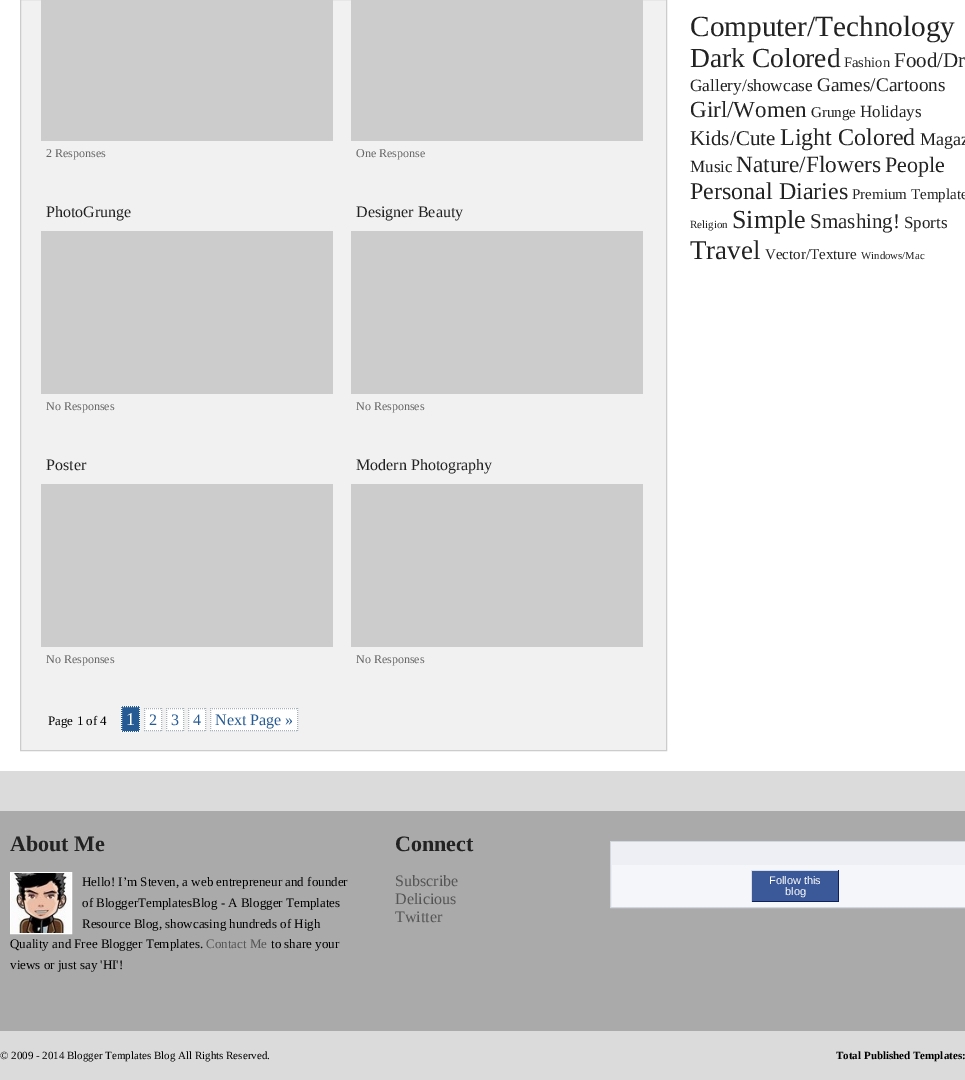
%!PS
<< /PageSize [965 1080] >> setpagedevice
/rgb { 3 { 255 div 3 1 roll } repeat setrgbcolor } def
/font { [ exch dup neg 0 0 3 -1 roll 0 0 ] selectfont } def
/text { moveto show } def
/picture { 5 dict begin { /h /w /y /x /name } { exch def } forall
  gsave x y translate w h scale
  w h 8 [w 0 0 h 0 0] name (r) file false 3 colorimage grestore end } def
0 1080 translate 1 -1 scale
4 setmiterlimit
219 219 219 rgb
0 0 965 1080 rectfill
255 255 255 rgb
0 0 965 771 rectfill
241 241 241 rgb
20.5 -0.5 moveto 646 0 rlineto 0 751 rlineto -646 0 rlineto closepath gsave fill grestore
204 204 204 rgb
stroke
41 0 292 141 rectfill
351 0 292 141 rectfill
41 231 292 163 rectfill
351 231 292 163 rectfill
41 484 292 163 rectfill
351 484 292 163 rectfill
37 90 147 rgb
121 706 19 26 rectfill
255 255 255 rgb
[1 1] 0 setdash
121 706.5 moveto 19 0 rlineto 139.5 706 moveto 0 26 rlineto 121 731.5 moveto 19 0 rlineto 121.5 706 moveto 0 26 rlineto stroke
144 708 18 23 rectfill
166 179 185 rgb
144 708.5 moveto 18 0 rlineto 161.5 708 moveto 0 23 rlineto 144 730.5 moveto 18 0 rlineto 144.5 708 moveto 0 23 rlineto stroke
255 255 255 rgb
166 708 18 23 rectfill
166 179 185 rgb
166 708.5 moveto 18 0 rlineto 183.5 708 moveto 0 23 rlineto 166 730.5 moveto 18 0 rlineto 166.5 708 moveto 0 23 rlineto stroke
255 255 255 rgb
188 708 18 23 rectfill
166 179 185 rgb
188 708.5 moveto 18 0 rlineto 205.5 708 moveto 0 23 rlineto 188 730.5 moveto 18 0 rlineto 188.5 708 moveto 0 23 rlineto stroke
255 255 255 rgb
210 708 88 23 rectfill
166 179 185 rgb
210 708.5 moveto 88 0 rlineto stroke
297.5 708 moveto 0 23 rlineto stroke
210 730.5 moveto 88 0 rlineto stroke
210.5 708 moveto 0 23 rlineto stroke
170 170 170 rgb
0 811 965 220 rectfill
255 255 255 rgb
[] 0 setdash
10.5 872.5 61 61 rectstroke
(img_01.rgb) 11 873 60 60 picture
245 246 249 rgb
611 865 354 42 rectfill
209 215 223 rgb
610.5 841.5 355 66 rectstroke
237 239 244 rgb
611 842 354 23 rectfill
59 89 152 rgb
752 871 86 30 rectfill
217 223 234 rgb
751 870 88 1 rectfill
14 31 91 rgb
838 870 1 32 rectfill
751 901 88 1 rectfill
217 223 234 rgb
751 870 1 32 rectfill
/LiberationSerif-Regular 12 font
102 102 102 rgb
(2 Responses) 46 157 text
(One Response) 356 157 text
/LiberationSerif-Regular 16 font
34 34 34 rgb
(PhotoGrunge) 46 217 text
/LiberationSerif-Regular 12 font
102 102 102 rgb
(No Responses) 46 410 text
/LiberationSerif-Regular 16 font
34 34 34 rgb
(Designer Beauty) 356 217 text
/LiberationSerif-Regular 12 font
102 102 102 rgb
(No Responses) 356 410 text
/LiberationSerif-Regular 16 font
34 34 34 rgb
(Poster) 46 470 text
/LiberationSerif-Regular 12 font
102 102 102 rgb
(No Responses) 46 663 text
/LiberationSerif-Regular 16 font
34 34 34 rgb
(Modern Photography) 356 470 text
/LiberationSerif-Regular 12 font
102 102 102 rgb
(No Responses) 356 663 text
/LiberationSerif-Regular 13 font
0 0 0 rgb
(Page 1 of 4) 48 725 text
/LiberationSerif-Regular 18 font
255 255 255 rgb
(1) 126 725 text
/LiberationSerif-Regular 16 font
37 90 147 rgb
(2) 149 725 text
(3) 171 725 text
(4) 193 725 text
(Next Page ») 215 725 text
/LiberationSerif-Regular 29.25 font
34 34 34 rgb
(Computer/Technology) 690 36 text
/LiberationSerif-Regular 27.5 font
(Dark Colored) 690 67 text
/LiberationSerif-Regular 14.5 font
(Fashion) 844 67 text
/LiberationSerif-Regular 21 font
(Food/Dr) 894 67 text
/LiberationSerif-Regular 17.25 font
(Gallery/showcase) 690 91 text
/LiberationSerif-Regular 19.25 font
(Games/Cartoons) 817 91 text
/LiberationSerif-Regular 23 font
(Girl/Women) 690 117 text
/LiberationSerif-Regular 15 font
(Grunge) 811 117 text
/LiberationSerif-Regular 17 font
(Holidays) 860 117 text
/LiberationSerif-Regular 21 font
(Kids/Cute) 690 145 text
/LiberationSerif-Regular 24 font
(Light Colored) 780 145 text
/LiberationSerif-Regular 18 font
(Magaz) 920 145 text
/LiberationSerif-Regular 17 font
(Music) 690 172 text
/LiberationSerif-Regular 23.25 font
(Nature/Flowers) 736 172 text
/LiberationSerif-Regular 22 font
(People) 885 172 text
/LiberationSerif-Regular 24 font
(Personal Diaries) 690 199 text
/LiberationSerif-Regular 15 font
(Premium Template) 852 199 text
/LiberationSerif-Regular 11 font
(Religion) 690 228 text
/LiberationSerif-Regular 26 font
(Simple) 732 228 text
/LiberationSerif-Regular 21 font
(Smashing!) 810 228 text
/LiberationSerif-Regular 17 font
(Sports) 904 228 text
/LiberationSerif-Regular 27 font
(Travel) 690 259 text
/LiberationSerif-Regular 15 font
(Vector/Texture) 765 259 text
/LiberationSerif-Regular 10.75 font
(Windows/Mac) 861 259 text
/LiberationSerif-Bold 22 font
(About Me) 10 851 text
/LiberationSerif-Regular 13 font
0 0 0 rgb
(Hello! I’m Steven, a web entrepreneur and founder) 82 886 text
(of BloggerTemplatesBlog - A Blogger Templates) 82 907 text
(Resource Blog, showcasing hundreds of High) 82 928 text
(Quality and Free Blogger Templates.) 10 948 text
85 85 85 rgb
(Contact Me) 206 948 text
0 0 0 rgb
(to share your) 271 948 text
(views or just say 'HI'!) 10 969 text
/LiberationSerif-Bold 22 font
34 34 34 rgb
(Connect) 395 851 text
/LiberationSerif-Regular 16 font
85 85 85 rgb
(Subscribe) 395 886 text
(Delicious) 395 904 text
(Twitter) 395 922 text
/LiberationSans-Regular 11 font
255 255 255 rgb
(Follow this) 769 884 text
(blog) 785 895 text
/LiberationSerif-Regular 11 font
0 0 0 rgb
(© 2009 - 2014 Blogger Templates Blog All Rights Reserved.) 0 1059 text
/LiberationSerif-Bold 11 font
(Total Published Templates:) 836 1059 text
showpage
